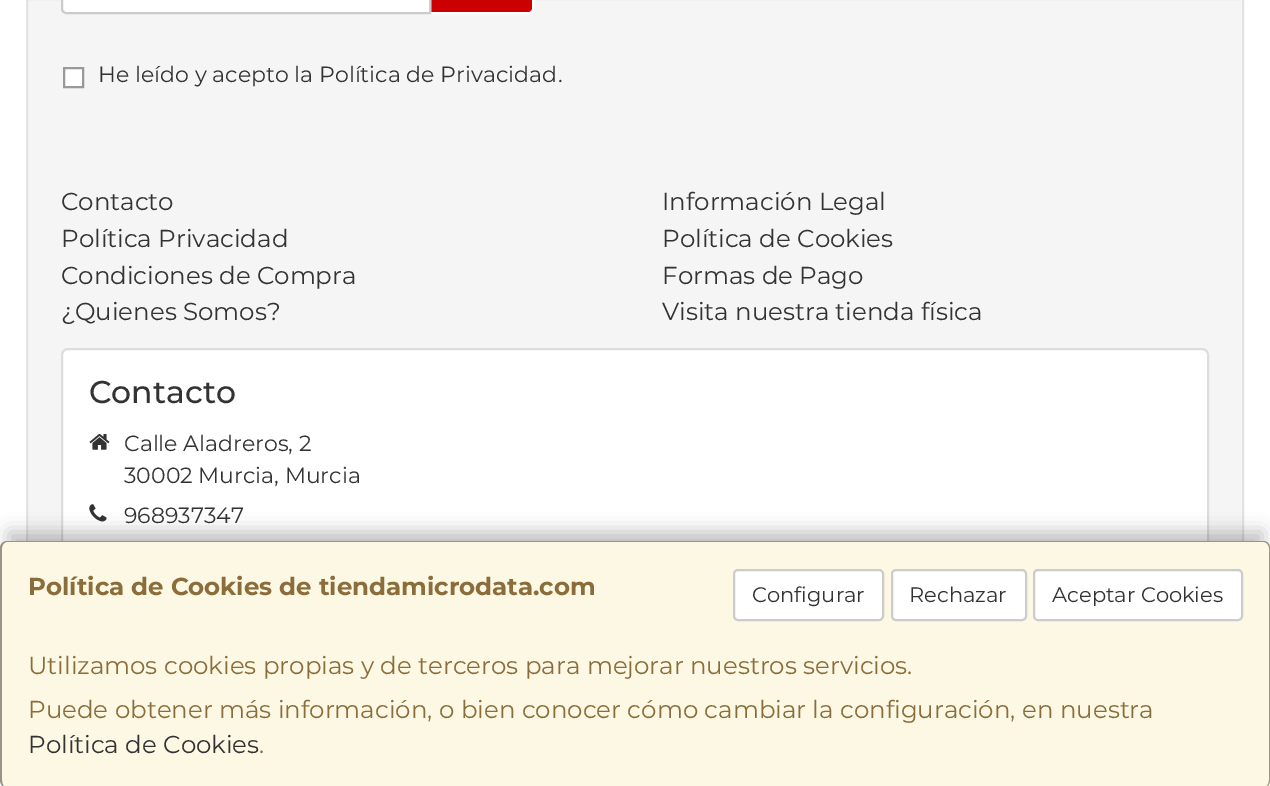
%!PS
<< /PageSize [1270 786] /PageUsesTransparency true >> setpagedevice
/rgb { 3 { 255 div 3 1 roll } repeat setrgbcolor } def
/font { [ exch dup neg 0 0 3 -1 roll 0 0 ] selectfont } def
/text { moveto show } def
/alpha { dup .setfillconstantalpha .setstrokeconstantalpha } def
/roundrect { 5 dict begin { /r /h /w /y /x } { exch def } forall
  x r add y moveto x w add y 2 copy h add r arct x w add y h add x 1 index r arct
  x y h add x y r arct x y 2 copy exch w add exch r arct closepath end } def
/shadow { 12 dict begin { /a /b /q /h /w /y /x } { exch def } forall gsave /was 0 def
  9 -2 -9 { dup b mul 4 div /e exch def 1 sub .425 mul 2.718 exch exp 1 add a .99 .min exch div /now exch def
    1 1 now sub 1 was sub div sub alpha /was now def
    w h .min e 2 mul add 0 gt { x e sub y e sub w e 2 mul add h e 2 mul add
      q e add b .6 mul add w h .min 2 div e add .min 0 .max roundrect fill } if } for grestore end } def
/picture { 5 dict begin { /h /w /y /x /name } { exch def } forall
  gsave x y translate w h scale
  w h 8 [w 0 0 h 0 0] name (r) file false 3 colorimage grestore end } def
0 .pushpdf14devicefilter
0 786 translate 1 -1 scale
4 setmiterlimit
255 255 255 rgb
0 0 1270 786 rectfill
245 245 245 rgb
28 0 1214 541 rectfill
227 227 227 rgb
2 setlinewidth
27 -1 1216 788 rectstroke
204 0 0 rgb
430 -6 moveto 99 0 rlineto 2 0 4 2 4 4 rcurveto 0 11 rlineto 0 2 -2 4 -4 4 rcurveto -99 0 rlineto closepath gsave fill grestore
255 255 255 rgb
stroke
66 -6 moveto 364 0 rlineto 0 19 rlineto -364 0 rlineto -2 0 -4 -2 -4 -4 rcurveto 0 -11 rlineto 0 -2 2 -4 4 -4 rcurveto closepath gsave fill grestore
204 204 204 rgb
stroke
255 255 255 rgb
64 68 moveto 19 0 rlineto 0 19 rlineto -19 0 rlineto closepath gsave fill grestore
153 153 153 rgb
stroke
255 255 255 rgb
62 349 1146 296 6 roundrect gsave fill grestore
221 221 221 rgb
stroke
(img_01.rgb) 89 434 21 16 picture
(img_02.rgb) 89 504 18 18 picture
0 0 0 rgb
9 532 1253 229 0 9 0.25 shadow
252 248 227 rgb
0 541 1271 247 7 roundrect fill
0.4 alpha
0 0 0 rgb
7 541 moveto 1257 0 rlineto 3 0 6 3 6 7 rcurveto 0 232 rlineto 0 4 -3 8 -6 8 rcurveto -1257 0 rlineto -4 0 -7 -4 -7 -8 rcurveto 0 -232 rlineto 0 -4 3 -7 7 -7 rcurveto closepath 7 542 moveto 1257 0 rlineto 2 0 5 3 5 6 rcurveto 0 232 rlineto 0 4 -3 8 -5 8 rcurveto -1257 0 rlineto -3 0 -5 -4 -5 -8 rcurveto 0 -232 rlineto 0 -3 2 -6 5 -6 rcurveto closepath eofill
1 alpha
255 255 255 rgb
734 570 149 50 4 roundrect gsave fill grestore
204 204 204 rgb
stroke
255 255 255 rgb
892 570 134 50 4 roundrect gsave fill grestore
204 204 204 rgb
stroke
255 255 255 rgb
1034 570 208 50 4 roundrect gsave fill grestore
204 204 204 rgb
stroke
/Montserrat-Regular 22 font
51 51 51 rgb
(He leído y acepto la) 98 82 text
(Política de Privacidad) 319 82 text
(.) 558 82 text
/Montserrat-Regular 24.5 font
(Contacto) 61 210 text
(Información Legal) 662 210 text
(Política Privacidad) 61 247 text
(Política de Cookies) 662 247 text
(Condiciones de Compra) 61 284 text
(Formas de Pago) 662 284 text
(¿Quienes Somos?) 61 320 text
(Visita nuestra tienda física) 662 320 text
/Montserrat-Medium 31.5 font
(Contacto) 89 403 text
/Montserrat-Regular 22 font
(Calle Aladreros, 2) 124 451 text
(30002 Murcia, Murcia) 124 483 text
(968937347) 124 523 text
/Montserrat-Bold 24.5 font
138 109 59 rgb
(Política de Cookies de tiendamicrodata.com) 28 595 text
/Montserrat-Regular 21 font
51 51 51 rgb
(Configurar) 752 602 text
(Rechazar) 909 602 text
(Aceptar Cookies) 1052 602 text
/Montserrat-Regular 24.5 font
138 109 59 rgb
(Utilizamos cookies propias y de terceros para mejorar nuestros servicios.) 28 674 text
(Puede obtener más información, o bien conocer cómo cambiar la configuración, en nuestra) 28 718 text
51 51 51 rgb
(Política de Cookies) 28 753 text
138 109 59 rgb
(.) 259 753 text
.poppdf14devicefilter showpage
